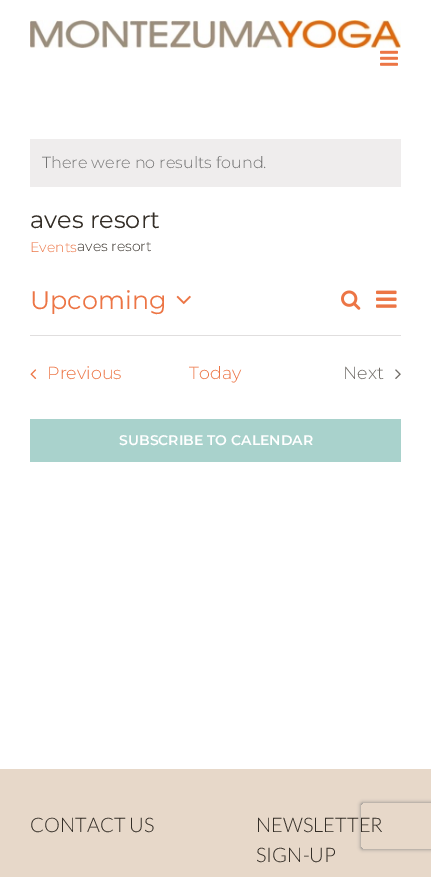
%!PS
<< /PageSize [431 877] /PageUsesTransparency true >> setpagedevice
/rgb { 3 { 255 div 3 1 roll } repeat setrgbcolor } def
/font { [ exch dup neg 0 0 3 -1 roll 0 0 ] selectfont } def
/text { moveto show } def
/alpha { dup .setfillconstantalpha .setstrokeconstantalpha } def
/roundrect { 5 dict begin { /r /h /w /y /x } { exch def } forall
  x r add y moveto x w add y 2 copy h add r arct x w add y h add x 1 index r arct
  x y h add x y r arct x y 2 copy exch w add exch r arct closepath end } def
/shadow { 12 dict begin { /a /b /q /h /w /y /x } { exch def } forall gsave /was 0 def
  9 -2 -9 { dup b mul 4 div /e exch def 1 sub .425 mul 2.718 exch exp 1 add a .99 .min exch div /now exch def
    1 1 now sub 1 was sub div sub alpha /was now def
    w h .min e 2 mul add 0 gt { x e sub y e sub w e 2 mul add h e 2 mul add
      q e add b .6 mul add w h .min 2 div e add .min 0 .max roundrect fill } if } for grestore end } def
/picture { 5 dict begin { /h /w /y /x /name } { exch def } forall
  gsave x y translate w h scale
  w h 8 [w 0 0 h 0 0] name (r) file false 3 colorimage grestore end } def
0 .pushpdf14devicefilter
0 877 translate 1 -1 scale
4 setmiterlimit
255 255 255 rgb
0 0 431 877 rectfill
(img_01.rgb) 30 20 371 28 picture
(img_02.rgb) 380 50 18 16 picture
239 237 237 rgb
30 139 371 48 rectfill
(img_03.rgb) 176 295 15 10 picture
(img_04.rgb) 341 290 20 20 picture
(img_05.rgb) 376 290 21 18 picture
224 222 222 rgb
30 335 371 1 rectfill
(img_06.rgb) 30 369 7 10 picture
(img_07.rgb) 395 369 6 10 picture
169 210 204 rgb
30 419 371 43 rectfill
231 216 201 rgb
0 769 431 108 rectfill
gsave
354 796 moveto 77 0 rlineto 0 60 rlineto -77 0 rlineto closepath 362.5 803 moveto 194 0 rlineto 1 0 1.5 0.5 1.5 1.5 rcurveto 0 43 rlineto 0 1 -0.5 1.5 -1.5 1.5 rcurveto -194 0 rlineto -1 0 -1.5 -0.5 -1.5 -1.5 rcurveto 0 -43 rlineto 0 -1 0.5 -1.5 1.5 -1.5 rcurveto closepath eoclip newpath
128 128 128 rgb
361 803 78 46 1.5 2 1 shadow
grestore
/Montserrat-Light 16 font
116 116 116 rgb
(There were no results found.) 42 168 text
/Montserrat-Thin 24 font
51 45 38 rgb
(aves resort) 30 228 text
/Montserrat-Light 14 font
236 117 69 rgb
(Events) 30 252 text
51 45 38 rgb
(aves resort) 77 251 text
/Montserrat-Thin 25.5 font
236 117 69 rgb
(Upcoming) 30 309 text
/Montserrat-Light 17.5 font
(Previous) 47 379 text
(Today) 189 379 text
112 108 103 rgb
(Next) 343 379 text
/Montserrat-SemiBold 14 font
255 255 255 rgb
(SUBSCRIBE TO CALENDAR) 119 445 text
/Lato-Light 20 font
51 45 38 rgb
(CONTACT US) 30 832 text
(NEWSLETTER) 256 832 text
(SIGN-UP) 256 862 text
.poppdf14devicefilter showpage
